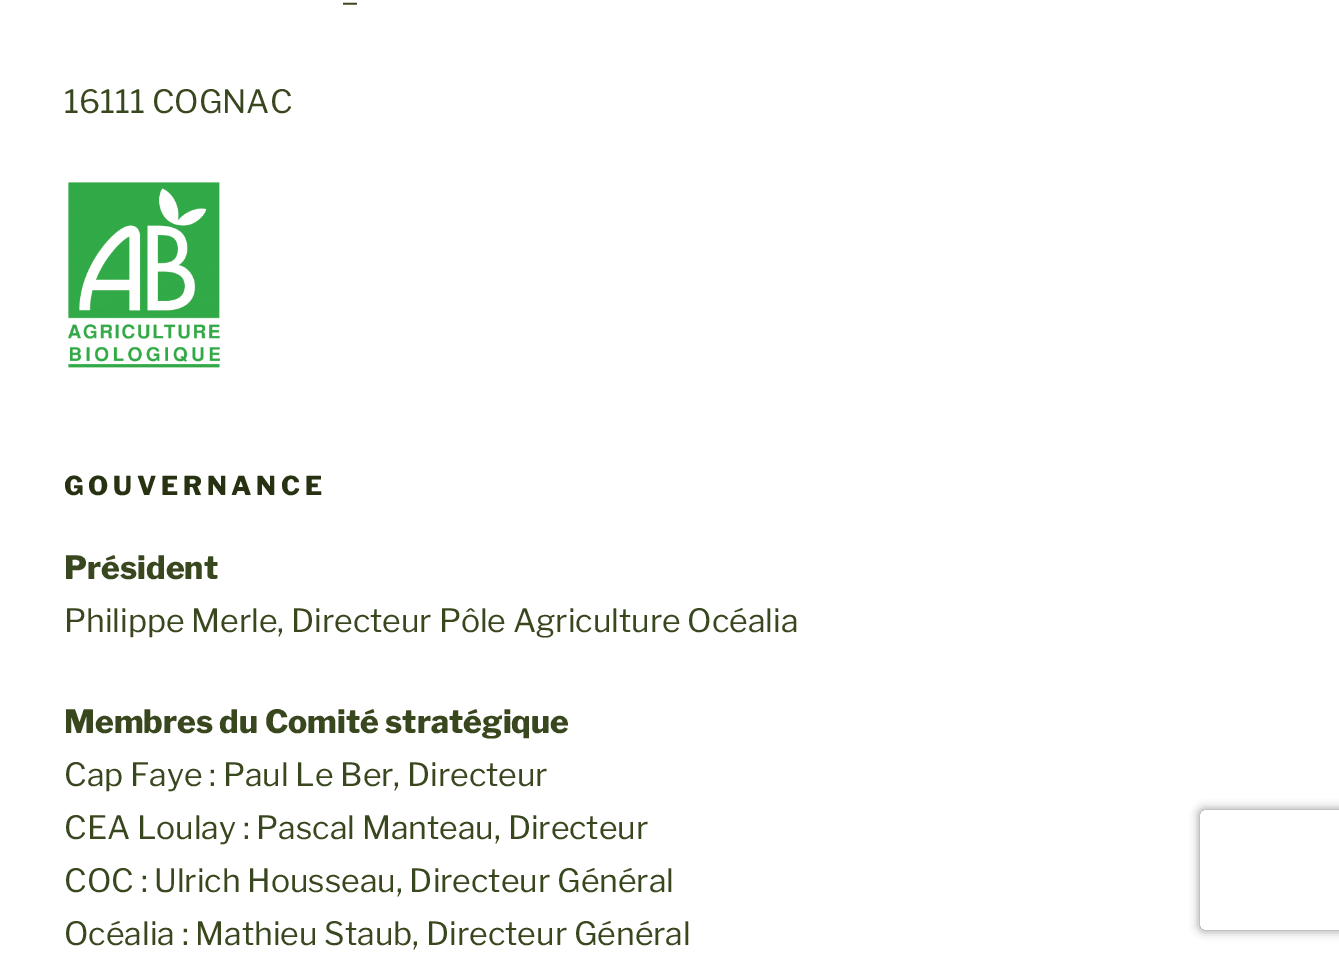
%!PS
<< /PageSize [1339 957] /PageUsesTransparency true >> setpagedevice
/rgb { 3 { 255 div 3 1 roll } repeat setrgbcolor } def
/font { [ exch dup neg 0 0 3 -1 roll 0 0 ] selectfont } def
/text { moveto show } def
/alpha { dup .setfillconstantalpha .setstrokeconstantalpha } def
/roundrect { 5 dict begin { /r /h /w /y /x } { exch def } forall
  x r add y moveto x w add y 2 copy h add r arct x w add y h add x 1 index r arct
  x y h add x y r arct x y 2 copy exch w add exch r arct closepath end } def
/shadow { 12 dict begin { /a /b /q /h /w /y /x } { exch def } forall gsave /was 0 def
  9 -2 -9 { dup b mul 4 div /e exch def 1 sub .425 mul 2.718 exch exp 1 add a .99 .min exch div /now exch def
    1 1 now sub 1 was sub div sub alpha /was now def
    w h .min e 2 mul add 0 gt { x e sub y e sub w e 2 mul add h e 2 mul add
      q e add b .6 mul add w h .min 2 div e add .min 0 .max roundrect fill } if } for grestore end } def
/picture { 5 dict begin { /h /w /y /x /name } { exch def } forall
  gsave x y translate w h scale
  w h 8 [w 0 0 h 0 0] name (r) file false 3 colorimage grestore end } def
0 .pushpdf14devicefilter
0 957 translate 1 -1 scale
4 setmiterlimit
255 255 255 rgb
0 0 1339 957 rectfill
(img_01.rgb) 68 182 152 186 picture
gsave
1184 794 moveto 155 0 rlineto 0 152 rlineto -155 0 rlineto closepath 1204 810 moveto 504 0 rlineto 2 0 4 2 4 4 rcurveto 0 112 rlineto 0 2 -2 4 -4 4 rcurveto -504 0 rlineto -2 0 -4 -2 -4 -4 rcurveto 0 -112 rlineto 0 -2 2 -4 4 -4 rcurveto closepath eoclip newpath
128 128 128 rgb
1200 810 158 120 4 5 1 shadow
grestore
/LibreFranklin-Regular 32 font
57 71 31 rgb
(–) 341 12 text
(16111 COGNAC) 64 113 text
/LibreFranklin-ExtraBold 26 font
38 50 17 rgb
64 495 moveto 4.75 0 (GOUVERNANCE) ashow
/LibreFranklin-ExtraBold 32 font
57 71 31 rgb
(Président) 64 579 text
/LibreFranklin-Regular 32 font
(Philippe Merle, Directeur Pôle Agriculture Océalia) 64 632 text
/LibreFranklin-ExtraBold 32 font
(Membres du Comité stratégique) 64 733 text
/LibreFranklin-Regular 32 font
(Cap Faye : Paul Le Ber, Directeur) 64 786 text
(CEA Loulay : Pascal Manteau, Directeur) 64 839 text
(COC : Ulrich Housseau, Directeur Général) 64 892 text
(Océalia : Mathieu Staub, Directeur Général) 64 945 text
.poppdf14devicefilter showpage
